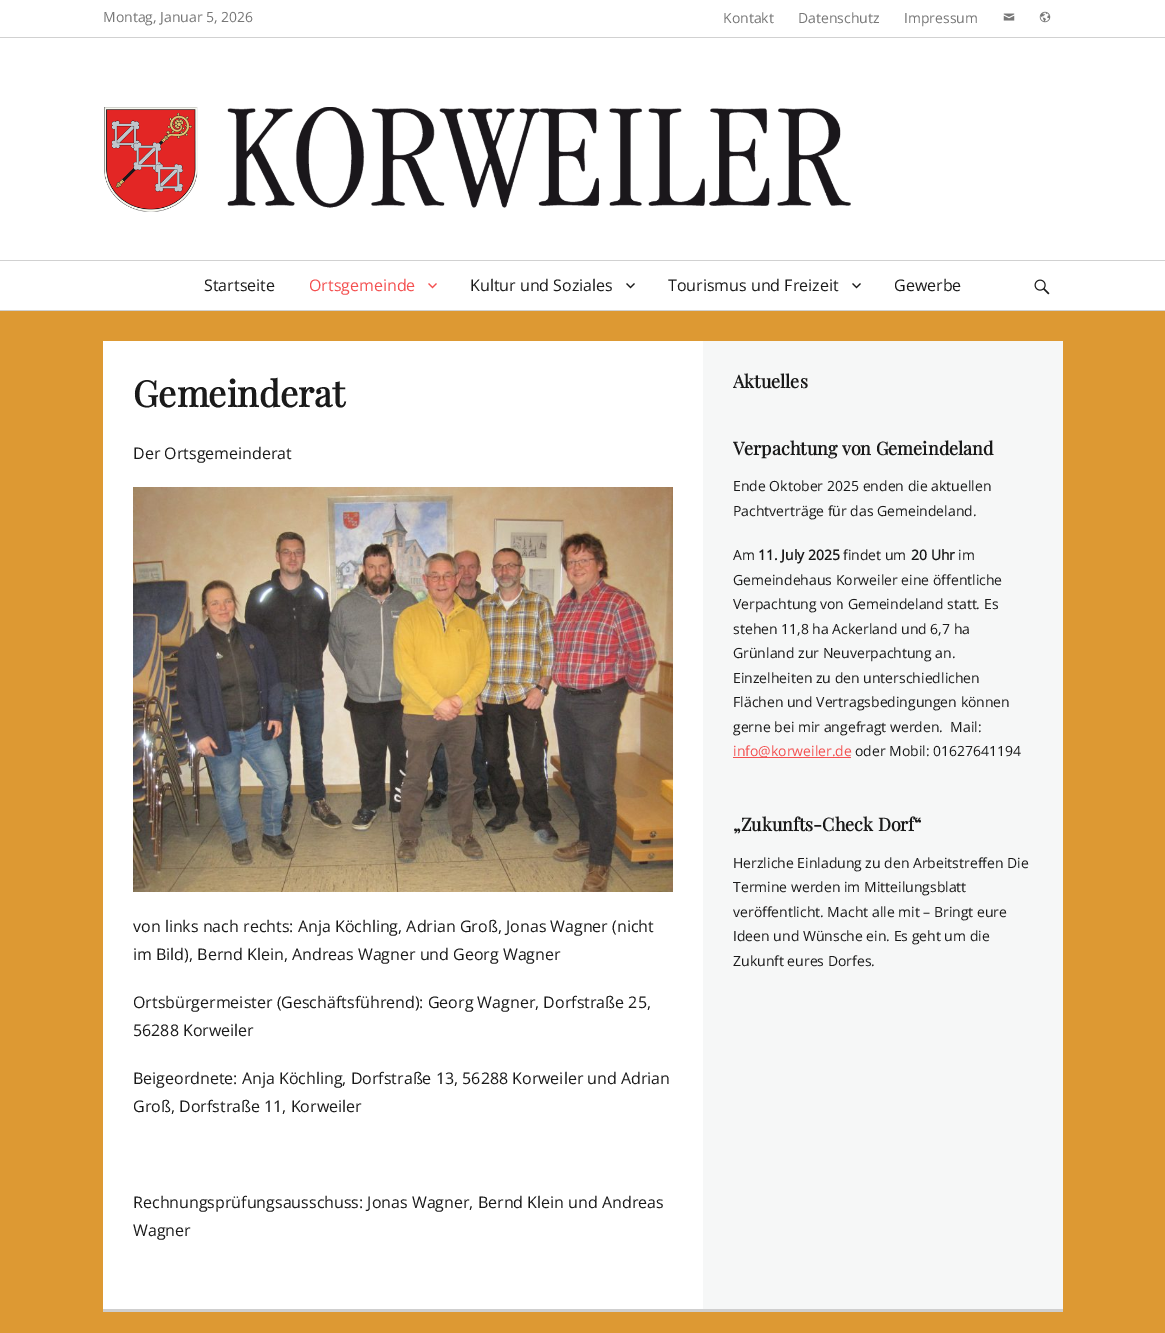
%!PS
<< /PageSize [1165 1333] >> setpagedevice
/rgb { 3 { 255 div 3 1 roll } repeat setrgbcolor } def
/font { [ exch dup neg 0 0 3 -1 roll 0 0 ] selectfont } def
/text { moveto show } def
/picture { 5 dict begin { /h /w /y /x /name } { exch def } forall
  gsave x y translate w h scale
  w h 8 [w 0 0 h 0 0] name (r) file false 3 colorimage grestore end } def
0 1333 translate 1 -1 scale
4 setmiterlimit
221 153 51 rgb
0 0 1165 1333 rectfill
255 255 255 rgb
0 0 1165 37 rectfill
209 209 209 rgb
0 37 1165 1 rectfill
(img_01.rgb) 1003 13 12 8 picture
(img_02.rgb) 1039 11 12 12 picture
255 255 255 rgb
0 38 1165 222 rectfill
(img_03.rgb) 104 107 747 105 picture
0 261 1165 49 rectfill
209 209 209 rgb
0 260 1165 1 rectfill
0 310 1165 1 rectfill
(img_04.rgb) 428 283 9 6 picture
(img_05.rgb) 626 283 9 6 picture
(img_05.rgb) 852 283 9 6 picture
(img_06.rgb) 1034 279 16 16 picture
246 247 247 rgb
703 341 360 968 rectfill
207 207 207 rgb
103 1309 960 3 rectfill
255 255 255 rgb
103 341 600 968 rectfill
(img_07.rgb) 133 487 540 405 picture
244 80 80 rgb
733 757 118 1 rectfill
/OpenSans-Regular 14 font
119 119 119 rgb
(Montag, Januar 5, 2026) 103 22 text
(Kontakt) 723 23 text
(Datenschutz) 798 23 text
(Impressum) 904 23 text
/OpenSans-Regular 16 font
26 26 26 rgb
(Startseite) 204 291 text
244 80 80 rgb
(Ortsgemeinde) 309 291 text
26 26 26 rgb
(Kultur und Soziales) 470 291 text
(Tourismus und Freizeit) 668 291 text
(Gewerbe) 894 291 text
/PlayfairDisplay-Bold 36 font
(Gemeinderat) 133 407 text
/OpenSans-Regular 16 font
(Der Ortsgemeinderat) 133 459 text
(von links nach rechts: Anja Köchling, Adrian Groß, Jonas Wagner \(nicht) 133 932 text
(im Bild\), Bernd Klein, Andreas Wagner und Georg Wagner) 133 960 text
(Ortsbürgermeister \(Geschäftsführend\): Georg Wagner, Dorfstraße 25,) 133 1008 text
(56288 Korweiler) 133 1036 text
(Beigeordnete: Anja Köchling, Dorfstraße 13, 56288 Korweiler und Adrian) 133 1084 text
(Groß, Dorfstraße 11, Korweiler) 133 1112 text
(Rechnungsprüfungsausschuss: Jonas Wagner, Bernd Klein und Andreas) 133 1208 text
(Wagner) 133 1236 text
/PlayfairDisplay-Bold 18 font
(Aktuelles) 733 388 text
(Verpachtung von Gemeindeland) 733 455 text
/OpenSans-Regular 14 font
(Ende Oktober 2025 enden die aktuellen) 733 491 text
(Pachtverträge für das Gemeindeland.) 733 516 text
(Am) 733 560 text
/OpenSans-Bold 14 font
(11. July 2025) 758 560 text
/OpenSans-Regular 14 font
(findet um) 843 560 text
/OpenSans-Bold 14 font
(20 Uhr) 911 560 text
/OpenSans-Regular 14 font
(im) 958 560 text
(Gemeindehaus Korweiler eine öffentliche) 733 585 text
(Verpachtung von Gemeindeland statt. Es) 733 609 text
(stehen 11,8 ha Ackerland und 6,7 ha) 733 634 text
(Grünland zur Neuverpachtung an.) 733 658 text
(Einzelheiten zu den unterschiedlichen) 733 683 text
(Flächen und Vertragsbedingungen können) 733 707 text
(gerne bei mir angefragt werden.  Mail:) 733 732 text
244 80 80 rgb
(info@korweiler.de) 733 756 text
26 26 26 rgb
(oder Mobil: 01627641194) 855 756 text
/PlayfairDisplay-Bold 18 font
(„Zukunfts-Check Dorf“) 733 831 text
/OpenSans-Regular 14 font
(Herzliche Einladung zu den Arbeitstreffen Die) 733 868 text
(Termine werden im Mitteilungsblatt) 733 892 text
(veröffentlicht. Macht alle mit – Bringt eure) 733 917 text
(Ideen und Wünsche ein. Es geht um die) 733 941 text
(Zukunft eures Dorfes.) 733 966 text
showpage
